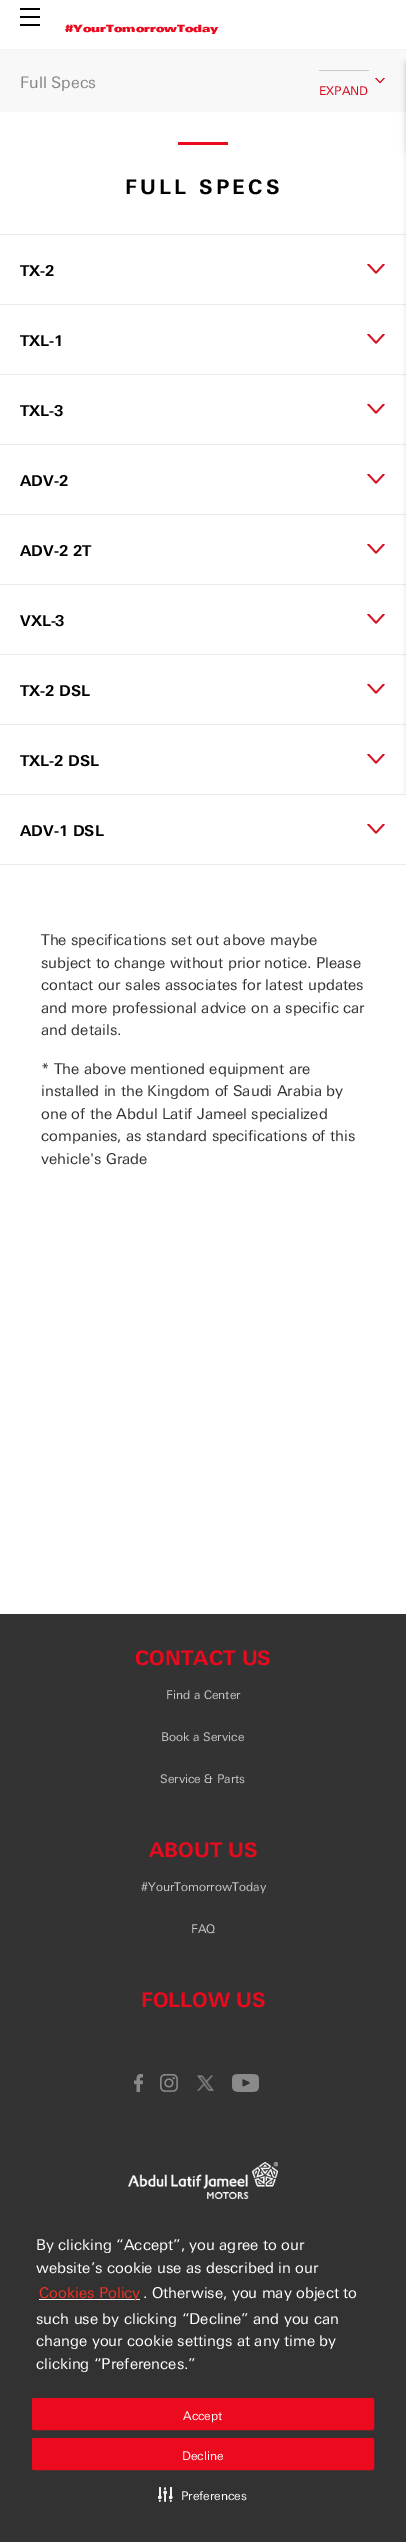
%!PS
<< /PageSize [406 2542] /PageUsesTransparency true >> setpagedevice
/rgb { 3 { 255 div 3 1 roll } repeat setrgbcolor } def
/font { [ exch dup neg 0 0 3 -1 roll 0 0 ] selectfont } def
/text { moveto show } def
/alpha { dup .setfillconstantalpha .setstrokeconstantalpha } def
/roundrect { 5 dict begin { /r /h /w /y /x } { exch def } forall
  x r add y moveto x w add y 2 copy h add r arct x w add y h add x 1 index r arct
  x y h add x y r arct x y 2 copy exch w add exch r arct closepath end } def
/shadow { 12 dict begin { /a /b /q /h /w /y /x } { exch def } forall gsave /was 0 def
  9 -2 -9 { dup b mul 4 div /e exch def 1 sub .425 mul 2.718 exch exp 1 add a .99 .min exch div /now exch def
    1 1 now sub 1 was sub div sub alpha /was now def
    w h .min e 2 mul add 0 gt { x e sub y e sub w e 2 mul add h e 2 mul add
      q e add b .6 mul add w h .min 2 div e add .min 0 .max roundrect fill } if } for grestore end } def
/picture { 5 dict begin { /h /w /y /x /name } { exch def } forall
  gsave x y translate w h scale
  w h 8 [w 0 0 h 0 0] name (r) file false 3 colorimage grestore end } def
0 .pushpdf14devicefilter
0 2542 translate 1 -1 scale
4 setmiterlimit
255 255 255 rgb
0 0 406 2542 rectfill
243 243 243 rgb
0 49 406 1 rectfill
0 0 0 rgb
20 8 20 2 rectfill
20 16 20 2 rectfill
20 24 20 2 rectfill
248 248 248 rgb
0 50 406 62 rectfill
236 235 233 rgb
0 234 406 1 rectfill
0 304 406 1 rectfill
0 374 406 1 rectfill
0 444 406 1 rectfill
0 514 406 1 rectfill
0 584 406 1 rectfill
0 654 406 1 rectfill
0 724 406 1 rectfill
0 794 406 1 rectfill
0 0 0 rgb
406 63 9 729 0 3 0.1 shadow
406 63 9 88 0 3 0.1 shadow
(img_01.rgb) 375 78 10 6 picture
202 202 202 rgb
319 70 50 1 rectfill
235 10 30 rgb
178 142 50 3 rectfill
236 235 233 rgb
0 864 406 1 rectfill
(img_02.rgb) 367 264 18 10 picture
(img_02.rgb) 367 334 18 10 picture
(img_02.rgb) 367 404 18 10 picture
(img_02.rgb) 367 474 18 10 picture
(img_02.rgb) 367 544 18 10 picture
(img_02.rgb) 367 614 18 10 picture
(img_02.rgb) 367 684 18 10 picture
(img_02.rgb) 367 754 18 10 picture
(img_02.rgb) 367 824 18 10 picture
51 51 51 rgb
0 1614 406 595 rectfill
(img_03.rgb) 134 2074 9 18 picture
(img_04.rgb) 160 2074 18 18 picture
(img_05.rgb) 197 2075 17 16 picture
(img_06.rgb) 232 2074 27 18 picture
(img_07.rgb) 128 2162 150 37 picture
50 50 50 rgb
0 2209 406 333 rectfill
255 255 255 rgb
39 2299 101 1 rectfill
235 10 30 rgb
32.5 2398.5 341 31 1.5 roundrect gsave fill grestore
stroke
32.5 2438.5 341 31 1.5 roundrect gsave fill grestore
stroke
(img_08.rgb) 158 2487 15 15 picture
/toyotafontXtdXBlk-Black 10 font
235 9 30 rgb
(#YourTomorrowToday) 65 32 text
/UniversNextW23-Regular 16 font
136 136 136 rgb
(Full Specs) 20 88 text
/UniversNextW23-Regular 12 font
213 5 25 rgb
(EXPAND) 319 95 text
/UniversNextW23-Bold 20 font
0 0 0 rgb
125 194 moveto 3.25 0 (FULL SPECS) ashow
/UniversNextW23-Bold 15 font
(TX-2) 20 276 text
(TXL-1) 20 346 text
(TXL-3) 20 416 text
(ADV-2) 20 486 text
(ADV-2 2T) 20 556 text
(VXL-3) 20 626 text
(TX-2 DSL) 20 696 text
(TXL-2 DSL) 20 766 text
(ADV-1 DSL) 20 836 text
/UniversNextW23-Regular 15 font
51 51 51 rgb
(The specifications set out above maybe) 41 945 text
(subject to change without prior notice. Please) 41 968 text
(contact our sales associates for latest updates) 41 990 text
(and more professional advice on a specific car) 41 1013 text
(and details.) 41 1035 text
(* The above mentioned equipment are) 41 1074 text
(installed in the Kingdom of Saudi Arabia by) 41 1096 text
(one of the Abdul Latif Jameel specialized) 41 1119 text
(companies, as standard specifications of this) 41 1141 text
(vehicle's Grade) 41 1164 text
/UniversNextW23-Bold 20 font
235 9 30 rgb
(CONTACT US) 135 1665 text
/UniversNextW23-Regular 12 font
196 196 196 rgb
(Find a Center) 166 1699 text
(Book a Service) 161 1741 text
(Service & Parts) 160 1783 text
/UniversNextW23-Bold 20 font
235 9 30 rgb
(ABOUT US) 149 1857 text
/UniversNextW23-Regular 12 font
196 196 196 rgb
(#YourTomorrowToday) 141 1891 text
(FAQ) 191 1933 text
/UniversNextW23-Bold 20 font
235 9 30 rgb
(FOLLOW US) 141 2007 text
/UniversNextW23-Regular 15 font
255 255 255 rgb
(By clicking “Accept”, you agree to our) 36 2250 text
(website’s cookie use as described in our) 36 2273 text
235 50 35 rgb
(Cookies Policy) 39 2298 text
255 255 255 rgb
(. Otherwise, you may object to) 143 2298 text
(such use by clicking “Decline” and you can) 36 2324 text
(change your cookie settings at any time by) 36 2346 text
(clicking “Preferences.”) 36 2369 text
/UniversNextW23-Regular 12 font
(Accept) 183 2420 text
(Decline) 182 2460 text
(Preferences) 181 2500 text
.poppdf14devicefilter showpage
